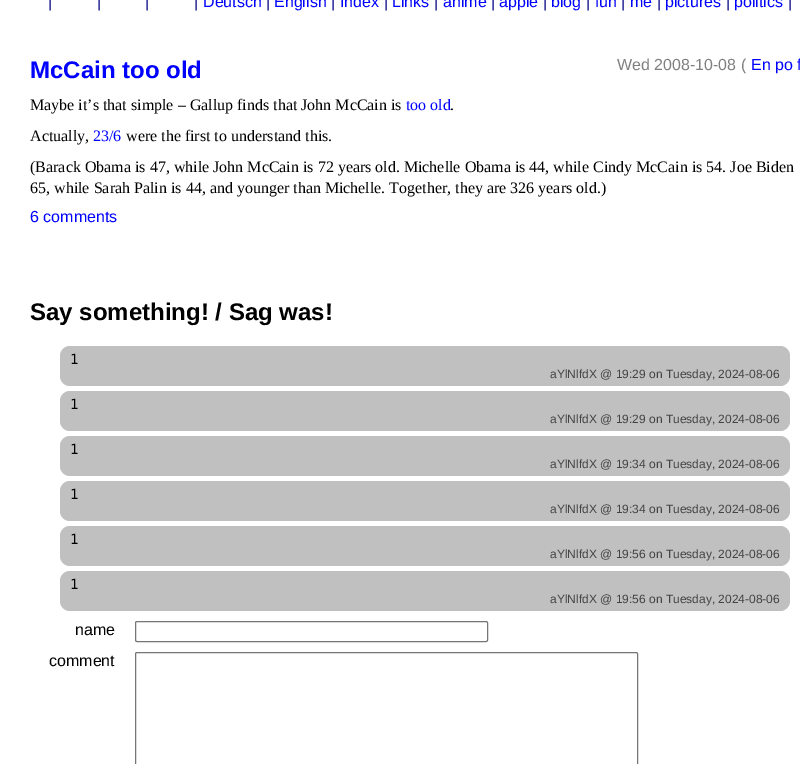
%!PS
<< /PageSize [800 764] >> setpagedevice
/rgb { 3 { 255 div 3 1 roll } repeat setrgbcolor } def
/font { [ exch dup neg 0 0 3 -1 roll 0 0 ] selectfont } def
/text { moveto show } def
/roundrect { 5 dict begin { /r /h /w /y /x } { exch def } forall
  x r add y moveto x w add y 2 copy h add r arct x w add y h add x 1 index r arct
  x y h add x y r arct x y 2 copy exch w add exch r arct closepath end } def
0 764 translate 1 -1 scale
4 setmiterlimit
255 255 255 rgb
0 0 800 764 rectfill
192 192 192 rgb
60 346 730 40 10 roundrect fill
60 391 730 40 10 roundrect fill
60 436 730 40 10 roundrect fill
60 481 730 40 10 roundrect fill
60 526 730 40 10 roundrect fill
60 571 730 40 10 roundrect fill
118 118 118 rgb
135.5 621.5 352 20 1.5 roundrect stroke
135.5 652.5 502 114 1.5 roundrect stroke
/LiberationSans-Regular 16 font
0 0 128 rgb
(|) 48 7 text
(|) 97 7 text
(|) 145 7 text
(|) 194 7 text
0 0 255 rgb
(Deutsch) 203 7 text
0 0 128 rgb
(|) 266 7 text
0 0 255 rgb
(English) 274 7 text
0 0 128 rgb
(|) 331 7 text
0 0 255 rgb
(Index) 340 7 text
0 0 128 rgb
(|) 384 7 text
0 0 255 rgb
(Links) 392 7 text
0 0 128 rgb
(|) 434 7 text
0 0 255 rgb
(anime) 443 7 text
0 0 128 rgb
(|) 491 7 text
0 0 255 rgb
(apple) 499 7 text
0 0 128 rgb
(|) 543 7 text
0 0 255 rgb
(blog) 551 7 text
0 0 128 rgb
(|) 586 7 text
0 0 255 rgb
(fun) 595 7 text
0 0 128 rgb
(|) 621 7 text
0 0 255 rgb
(me) 630 7 text
0 0 128 rgb
(|) 657 7 text
0 0 255 rgb
(pictures) 665 7 text
0 0 128 rgb
(|) 726 7 text
0 0 255 rgb
(politics) 734 7 text
0 0 128 rgb
(|) 788 7 text
/LiberationSans-Bold 24 font
0 0 255 rgb
(McCain too old) 30 78 text
/LiberationSans-Regular 16 font
128 128 128 rgb
(Wed 2008-10-08 \() 617 70 text
0 0 255 rgb
(En po f) 751 70 text
/LiberationSerif-Regular 16 font
0 0 0 rgb
(Maybe it’s that simple – Gallup finds that John McCain is) 30 110 text
0 0 255 rgb
(too old) 406 110 text
0 0 0 rgb
(.) 450 110 text
(Actually,) 30 141 text
0 0 255 rgb
(23/6) 93 141 text
0 0 0 rgb
(were the first to understand this.) 126 141 text
(\(Barack Obama is 47, while John McCain is 72 years old. Michelle Obama is 44, while Cindy McCain is 54. Joe Biden) 30 172 text
(65, while Sarah Palin is 44, and younger than Michelle. Together, they are 326 years old.\)) 30 193 text
/LiberationSans-Regular 16 font
0 0 255 rgb
(6 comments) 30 222 text
/LiberationSans-Bold 24 font
0 0 0 rgb
(Say something! / Sag was!) 30 320 text
/DejaVuSansMono-Regular 14 font
(1) 70 364 text
/LiberationSans-Regular 12 font
68 68 68 rgb
(aYlNlfdX @ 19:29 on Tuesday, 2024-08-06) 550 378 text
/DejaVuSansMono-Regular 14 font
0 0 0 rgb
(1) 70 409 text
/LiberationSans-Regular 12 font
68 68 68 rgb
(aYlNlfdX @ 19:29 on Tuesday, 2024-08-06) 550 423 text
/DejaVuSansMono-Regular 14 font
0 0 0 rgb
(1) 70 454 text
/LiberationSans-Regular 12 font
68 68 68 rgb
(aYlNlfdX @ 19:34 on Tuesday, 2024-08-06) 550 468 text
/DejaVuSansMono-Regular 14 font
0 0 0 rgb
(1) 70 499 text
/LiberationSans-Regular 12 font
68 68 68 rgb
(aYlNlfdX @ 19:34 on Tuesday, 2024-08-06) 550 513 text
/DejaVuSansMono-Regular 14 font
0 0 0 rgb
(1) 70 544 text
/LiberationSans-Regular 12 font
68 68 68 rgb
(aYlNlfdX @ 19:56 on Tuesday, 2024-08-06) 550 558 text
/DejaVuSansMono-Regular 14 font
0 0 0 rgb
(1) 70 589 text
/LiberationSans-Regular 12 font
68 68 68 rgb
(aYlNlfdX @ 19:56 on Tuesday, 2024-08-06) 550 603 text
/LiberationSans-Regular 16 font
0 0 0 rgb
(name) 75 635 text
(comment) 49 666 text
showpage
